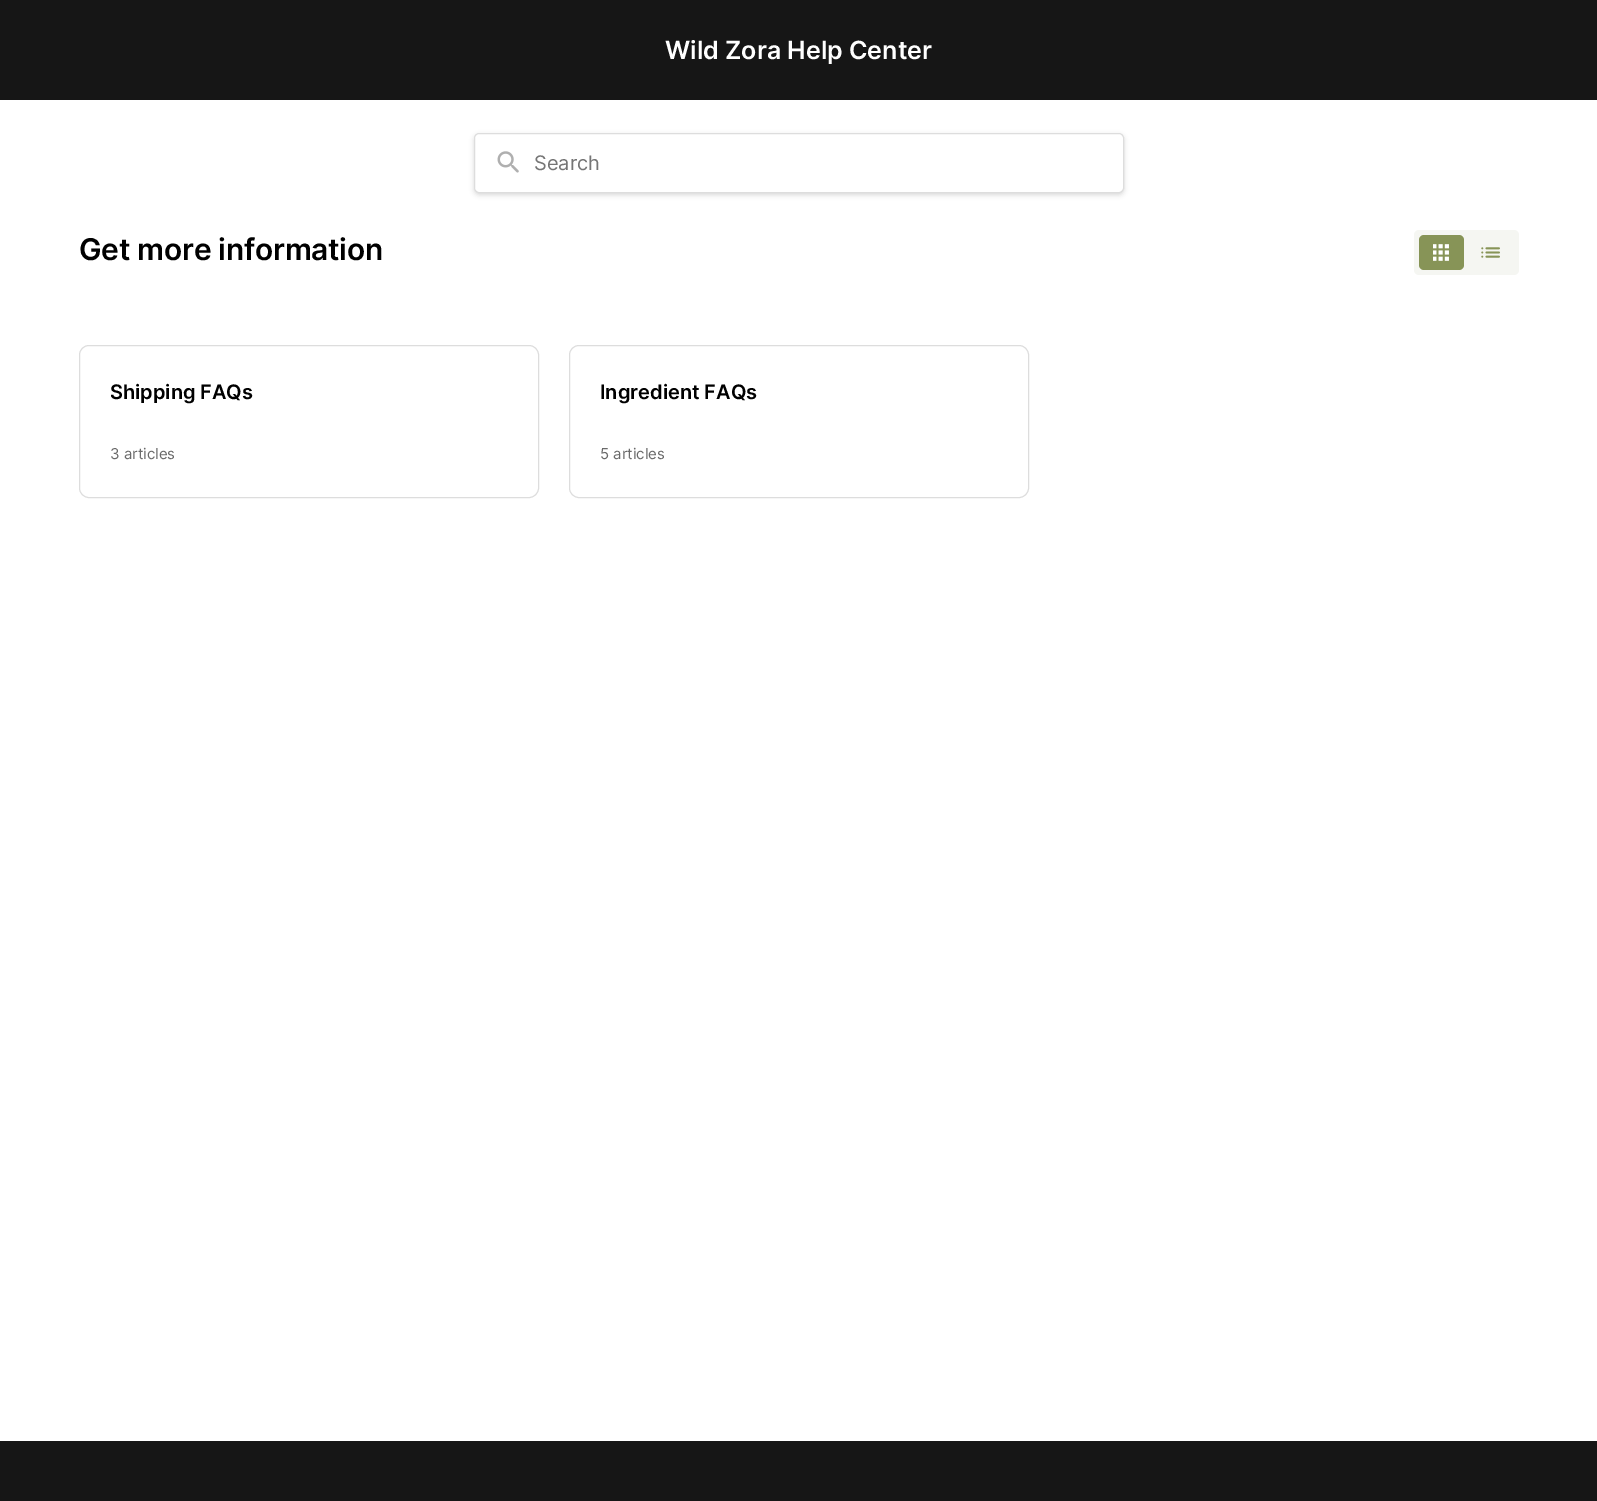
%!PS
<< /PageSize [1597 1501] /PageUsesTransparency true >> setpagedevice
/rgb { 3 { 255 div 3 1 roll } repeat setrgbcolor } def
/font { [ exch dup neg 0 0 3 -1 roll 0 0 ] selectfont } def
/text { moveto show } def
/alpha { dup .setfillconstantalpha .setstrokeconstantalpha } def
/roundrect { 5 dict begin { /r /h /w /y /x } { exch def } forall
  x r add y moveto x w add y 2 copy h add r arct x w add y h add x 1 index r arct
  x y h add x y r arct x y 2 copy exch w add exch r arct closepath end } def
/shadow { 12 dict begin { /a /b /q /h /w /y /x } { exch def } forall gsave /was 0 def
  9 -2 -9 { dup b mul 4 div /e exch def 1 sub .425 mul 2.718 exch exp 1 add a .99 .min exch div /now exch def
    1 1 now sub 1 was sub div sub alpha /was now def
    w h .min e 2 mul add 0 gt { x e sub y e sub w e 2 mul add h e 2 mul add
      q e add b .6 mul add w h .min 2 div e add .min 0 .max roundrect fill } if } for grestore end } def
/picture { 5 dict begin { /h /w /y /x /name } { exch def } forall
  gsave x y translate w h scale
  w h 8 [w 0 0 h 0 0] name (r) file false 3 colorimage grestore end } def
0 .pushpdf14devicefilter
0 1501 translate 1 -1 scale
4 setmiterlimit
255 255 255 rgb
0 0 1597 1501 rectfill
22 22 22 rgb
0 0 1597 100 rectfill
474 135 650 60 5 2.5 0.16 shadow
255 255 255 rgb
474.5 133.5 649 59 4.5 roundrect gsave fill grestore
221 221 221 rgb
stroke
(img_01.rgb) 497 151 22 22 picture
245 246 242 rgb
1414 230 105 45 5 roundrect fill
135 148 87 rgb
1419 235 45 35 5 roundrect fill
(img_02.rgb) 1433 244 67 17 picture
221 221 221 rgb
79.5 345.5 459 152 9.5 roundrect stroke
569.5 345.5 459 152 9.5 roundrect stroke
22 22 22 rgb
0 1441 1597 60 rectfill
/Inter-SemiBold 25 font
255 255 255 rgb
(Wild Zora Help Center) 665 59 text
/Inter-Regular 20 font
117 117 117 rgb
(Search) 534 170 text
/Inter-SemiBold 30 font
0 0 0 rgb
79 260 moveto -0.25 0 (Get more information) ashow
/Inter-SemiBold 20 font
(Shipping FAQs) 110 399 text
/Inter-Regular 15 font
106 106 106 rgb
(3 articles) 110 459 text
/Inter-SemiBold 20 font
0 0 0 rgb
(Ingredient FAQs) 600 399 text
/Inter-Regular 15 font
106 106 106 rgb
(5 articles) 600 459 text
.poppdf14devicefilter showpage
